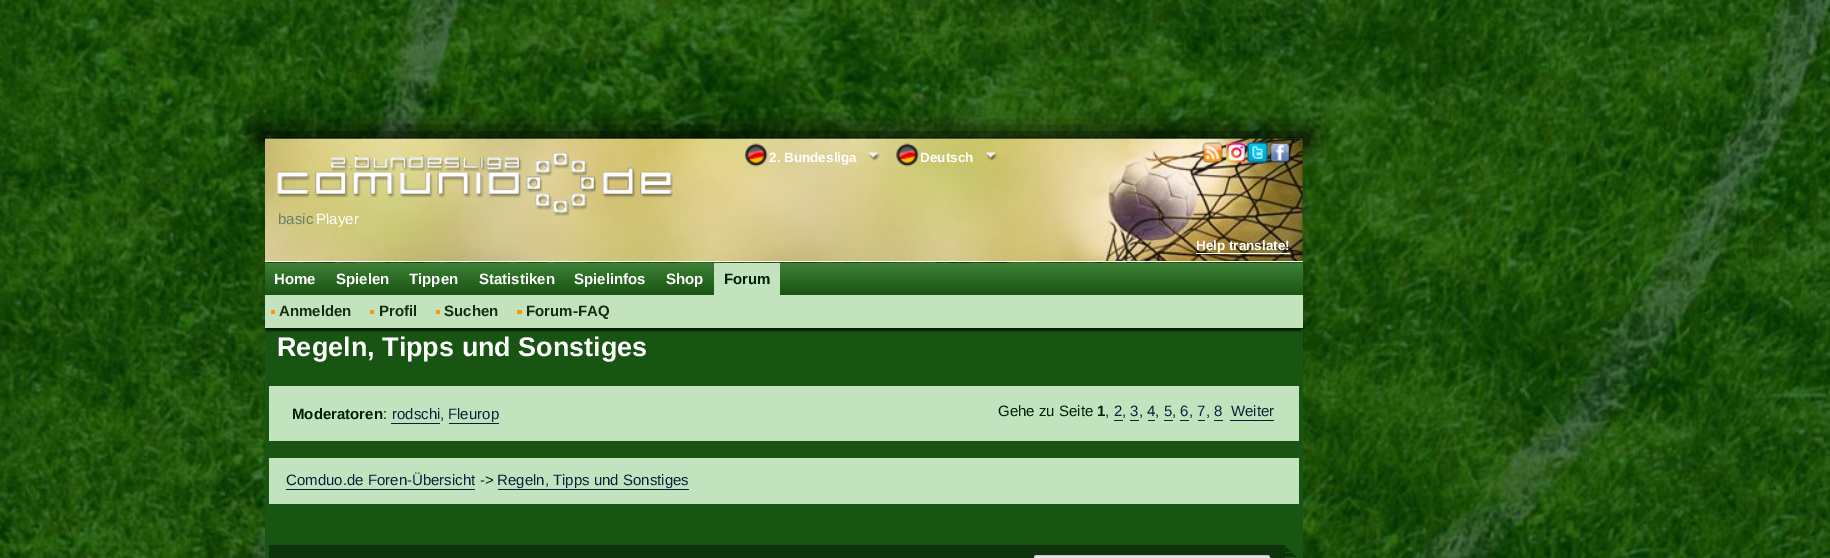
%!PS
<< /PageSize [1830 558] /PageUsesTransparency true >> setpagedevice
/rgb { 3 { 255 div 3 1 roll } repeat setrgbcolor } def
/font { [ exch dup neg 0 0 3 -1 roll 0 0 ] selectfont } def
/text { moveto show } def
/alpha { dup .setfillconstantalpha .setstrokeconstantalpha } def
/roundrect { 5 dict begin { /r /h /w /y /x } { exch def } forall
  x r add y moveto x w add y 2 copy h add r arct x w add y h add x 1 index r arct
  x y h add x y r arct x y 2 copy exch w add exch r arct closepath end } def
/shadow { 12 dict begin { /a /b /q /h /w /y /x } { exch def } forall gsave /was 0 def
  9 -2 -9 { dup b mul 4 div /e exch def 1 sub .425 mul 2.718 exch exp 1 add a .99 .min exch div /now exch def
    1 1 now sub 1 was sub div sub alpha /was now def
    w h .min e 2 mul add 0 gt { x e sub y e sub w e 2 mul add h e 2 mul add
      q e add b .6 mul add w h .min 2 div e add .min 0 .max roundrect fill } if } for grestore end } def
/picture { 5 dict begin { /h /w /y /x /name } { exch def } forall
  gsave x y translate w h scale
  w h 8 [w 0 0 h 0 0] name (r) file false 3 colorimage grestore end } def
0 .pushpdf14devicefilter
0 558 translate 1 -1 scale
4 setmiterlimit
255 255 255 rgb
0 0 1830 558 rectfill
(img_01.rgb) 0 0 1830 558 picture
0 0 0 rgb
260 134 1048 10 0 12.5 1 shadow
20 71 15 rgb
1302 139 1 122 rectfill
(img_02.rgb) 265 138 1038 123 picture
(img_04.rgb) 602 167 71 31 picture
(img_05.rgb) 1202 142 21 21 picture
(img_06.rgb) 1226 142 19 21 picture
(img_07.rgb) 1247 142 21 21 picture
(img_08.rgb) 1270 142 20 21 picture
(img_09.rgb) 745 143 23 24 picture
(img_10.rgb) 868 152 12 9 picture
(img_11.rgb) 896 143 23 24 picture
(img_12.rgb) 986 152 12 9 picture
255 255 255 rgb
1196 253 94 1 rectfill
265 261 1038 1 rectfill
gsave 265 263 moveto 1038 0 rlineto 0 32 rlineto -1038 0 rlineto closepath clip newpath
<< /ShadingType 2 /ColorSpace /DeviceRGB /Coords [265 263 265 295] /Extend [true true] /Function << /FunctionType 2 /Domain [0 1] /C0 [0.243 0.506 0.216] /C1 [0.094 0.329 0.071] /N 1 >> >> shfill grestore
195 227 191 rgb
714 263 66 32 rectfill
24 84 18 rgb
265 329 1038 229 rectfill
0 0 0 rgb
266 300 1035 31 0 1 0.7 shadow
195 227 191 rgb
265 295 1038 33 rectfill
0 32 0 rgb
265 328 1038 1 rectfill
255 149 0 rgb
271 310 4 4 rectfill
370 310 4 4 rectfill
436 310 4 4 rectfill
517 310 5 4 rectfill
195 227 191 rgb
269 386 1030 55 rectfill
1 35 59 rgb
391 423 49 1 rectfill
449 423 50 1 rectfill
1114 420 9 1 rectfill
1130 420 9 1 rectfill
1148 420 7 1 rectfill
1164 420 9 1 rectfill
1180 420 9 1 rectfill
1198 420 7 1 rectfill
1214 420 9 1 rectfill
1230 420 44 1 rectfill
195 227 191 rgb
269 458 1030 46 rectfill
1 35 59 rgb
286 489 189 1 rectfill
498 489 191 1 rectfill
15 51 11 rgb
269 545 1016 13 rectfill
1285 546 1 1 rectfill
1285 548 3 1 rectfill
1285 549 4 1 rectfill
1285 550 5 1 rectfill
1285 551 6 1 rectfill
1285 553 8 1 rectfill
1285 554 9 1 rectfill
1285 555 10 1 rectfill
1285 556 11 1 rectfill
235 235 235 rgb
1036 558 moveto 232 0 rlineto 1 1 rlineto 0 -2 rlineto 0 -1 0 -1 -1 -1 rcurveto -232 0 rlineto -1 0 -1 0 -1 1 rcurveto 0 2 rlineto closepath fill
200 200 200 rgb
1034.5 555.5 235 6 2 roundrect stroke
/LiberationSans-Regular 15 font
99 131 99 rgb
(basic) 278 224 text
255 255 255 rgb
(Player) 316 224 text
(img_03.rgb) 277 152 320 64 picture
/LiberationSans-Bold 13.5 font
(2. Bundesliga) 769 162 text
(Deutsch) 920 162 text
(Help translate!) 1196 250 text
/LiberationSans-Bold 15 font
(Home) 274 284 text
0 32 0 rgb
(Forum) 724 284 text
21 45 12 rgb
(Anmelden) 279 316 text
(Profil) 379 316 text
(Suchen) 444 316 text
(Forum-FAQ) 526 316 text
255 255 255 rgb
(Spielen) 336 284 text
(Tippen) 409 284 text
(Statistiken) 479 284 text
(Spielinfos) 574 284 text
(Shop) 666 284 text
/LiberationSans-Bold 27 font
(Regeln, Tipps und Sonstiges) 277 356 text
/LiberationSans-Bold 15 font
0 32 0 rgb
(Moderatoren) 292 419 text
/LiberationSans-Regular 15 font
(:) 383 419 text
1 35 59 rgb
(rodschi) 392 419 text
0 32 0 rgb
(,) 440 419 text
1 35 59 rgb
(Fleurop) 448 419 text
0 32 0 rgb
(Gehe zu Seite) 998 416 text
/LiberationSans-Bold 15 font
(1) 1097 416 text
/LiberationSans-Regular 15 font
(,) 1105 416 text
1 35 59 rgb
(2) 1114 416 text
0 32 0 rgb
(,) 1122 416 text
1 35 59 rgb
(3) 1130 416 text
0 32 0 rgb
(,) 1139 416 text
1 35 59 rgb
(4) 1147 416 text
0 32 0 rgb
(,) 1155 416 text
1 35 59 rgb
(5) 1164 416 text
0 32 0 rgb
(,) 1172 416 text
1 35 59 rgb
(6) 1180 416 text
0 32 0 rgb
(,) 1189 416 text
1 35 59 rgb
(7) 1197 416 text
0 32 0 rgb
(,) 1206 416 text
1 35 59 rgb
(8) 1214 416 text
(Weiter) 1231 416 text
(Comduo.de Foren-Übersicht) 286 485 text
0 32 0 rgb
(->) 480 485 text
1 35 59 rgb
(Regeln, Tipps und Sonstiges) 497 485 text
.poppdf14devicefilter showpage
